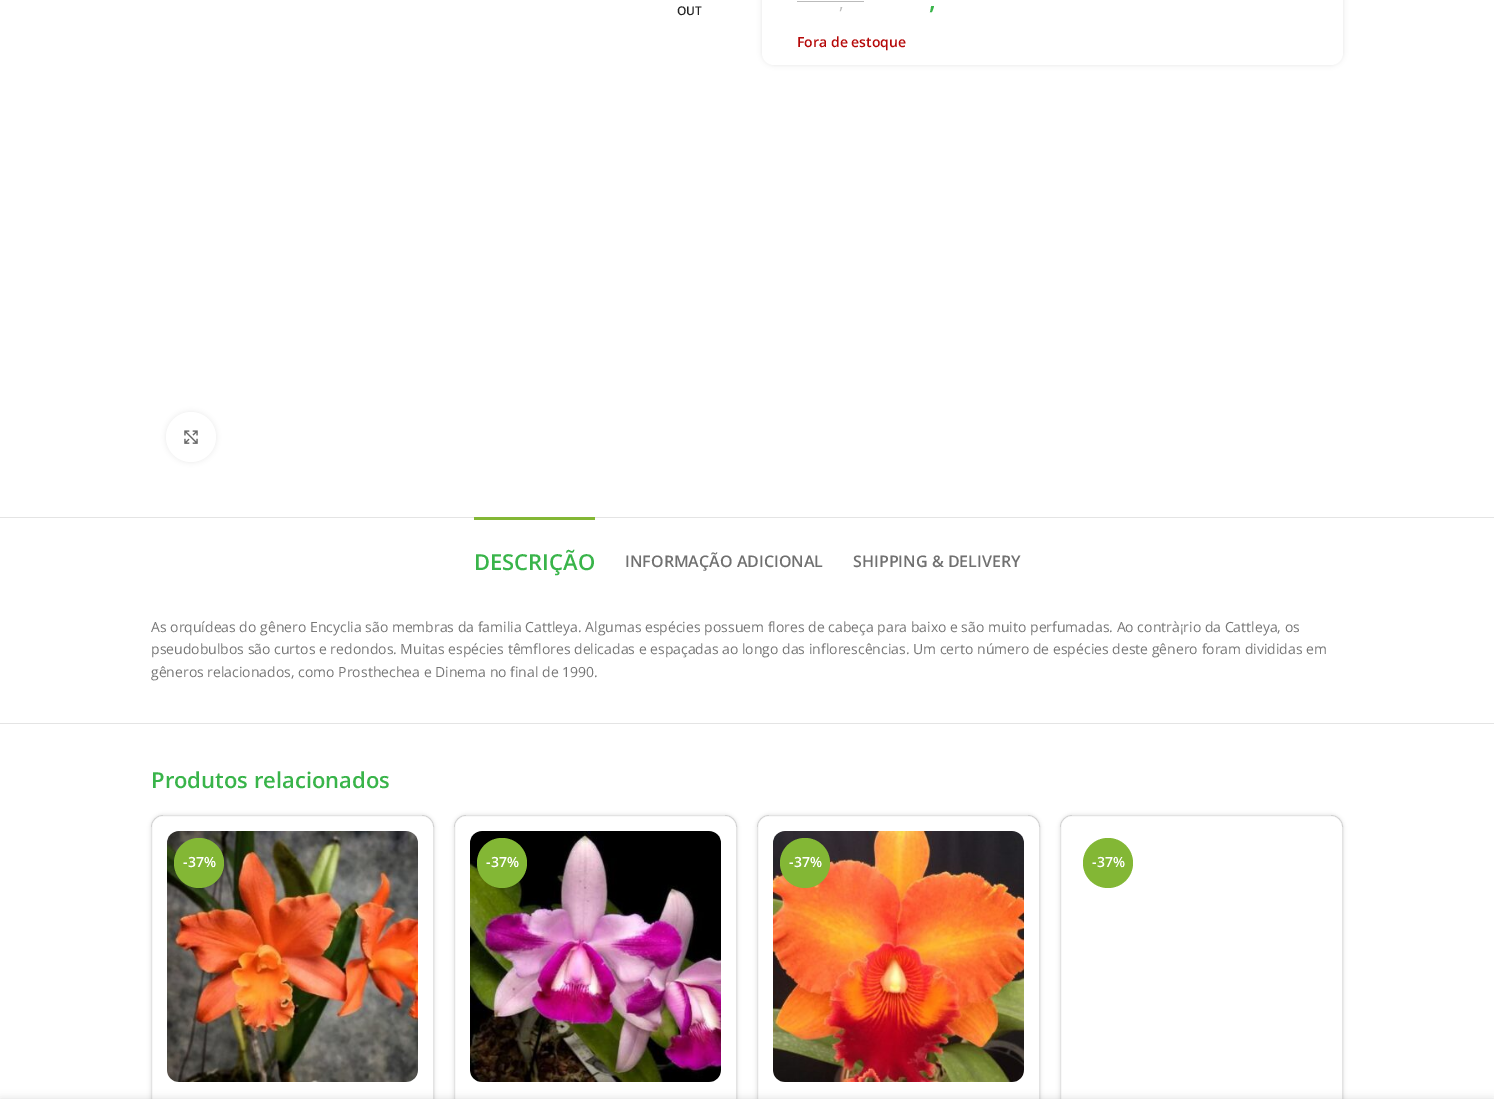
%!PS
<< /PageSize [1494 1099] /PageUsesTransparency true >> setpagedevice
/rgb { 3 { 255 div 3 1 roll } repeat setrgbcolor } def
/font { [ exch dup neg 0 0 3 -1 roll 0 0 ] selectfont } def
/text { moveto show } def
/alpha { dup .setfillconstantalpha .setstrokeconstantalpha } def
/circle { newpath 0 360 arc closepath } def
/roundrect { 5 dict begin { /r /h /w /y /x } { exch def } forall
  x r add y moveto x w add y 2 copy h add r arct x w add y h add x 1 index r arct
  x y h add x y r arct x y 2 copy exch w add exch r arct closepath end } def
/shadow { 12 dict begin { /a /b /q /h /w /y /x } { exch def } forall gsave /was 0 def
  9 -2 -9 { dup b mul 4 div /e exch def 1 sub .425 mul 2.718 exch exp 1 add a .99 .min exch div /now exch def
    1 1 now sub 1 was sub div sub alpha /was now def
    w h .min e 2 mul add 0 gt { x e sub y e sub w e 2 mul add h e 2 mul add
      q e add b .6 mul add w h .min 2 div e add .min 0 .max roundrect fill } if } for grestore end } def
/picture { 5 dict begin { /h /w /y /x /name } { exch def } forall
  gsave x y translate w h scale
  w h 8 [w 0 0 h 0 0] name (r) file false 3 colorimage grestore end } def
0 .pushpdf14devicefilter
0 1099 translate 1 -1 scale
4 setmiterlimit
255 255 255 rgb
0 0 1494 1099 rectfill
0 0 0 rgb
166 412 50 50 25 2.5 0.08 shadow
255 255 255 rgb
191 437 25 circle fill
(img_01.rgb) 184 430 14 14 picture
0 0 0 rgb
762 -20 581 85 12 2.5 0.1 shadow
255 255 255 rgb
762 -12 581 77 12 roundrect fill
187 187 187 rgb
797 1 67 1 rectfill
228 228 228 rgb
0 517 1494 1 rectfill
0 723 1494 1 rectfill
131 183 53 rgb
474 517 121 3 rectfill
gsave
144 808 moveto 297 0 rlineto 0 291 rlineto -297 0 rlineto closepath 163 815 moveto 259 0 rlineto 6.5 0 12 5.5 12 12 rcurveto 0 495 rlineto 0 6.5 -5.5 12 -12 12 rcurveto -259 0 rlineto -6.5 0 -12 -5.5 -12 -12 rcurveto 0 -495 rlineto 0 -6.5 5.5 -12 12 -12 rcurveto closepath eoclip newpath
0 0 0 rgb
151 815 283 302 12 2 0.12 shadow
grestore
0.11 alpha
0 0 0 rgb
151.5 815.5 282 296 11.5 roundrect stroke
1 alpha
(img_02.rgb) 167 831 251 251 picture
131 183 53 rgb
199 863 25 circle fill
gsave
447 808 moveto 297 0 rlineto 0 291 rlineto -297 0 rlineto closepath 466 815 moveto 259 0 rlineto 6.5 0 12 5.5 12 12 rcurveto 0 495 rlineto 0 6.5 -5.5 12 -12 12 rcurveto -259 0 rlineto -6.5 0 -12 -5.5 -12 -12 rcurveto 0 -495 rlineto 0 -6.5 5.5 -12 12 -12 rcurveto closepath eoclip newpath
0 0 0 rgb
454 815 283 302 12 2 0.12 shadow
grestore
0.11 alpha
0 0 0 rgb
454.5 815.5 282 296 11.5 roundrect stroke
1 alpha
(img_03.rgb) 470 831 251 251 picture
131 183 53 rgb
502 863 25 circle fill
gsave
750 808 moveto 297 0 rlineto 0 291 rlineto -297 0 rlineto closepath 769 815 moveto 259 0 rlineto 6.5 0 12 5.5 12 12 rcurveto 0 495 rlineto 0 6.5 -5.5 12 -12 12 rcurveto -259 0 rlineto -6.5 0 -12 -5.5 -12 -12 rcurveto 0 -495 rlineto 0 -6.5 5.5 -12 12 -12 rcurveto closepath eoclip newpath
0 0 0 rgb
757 815 283 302 12 2 0.12 shadow
grestore
0.11 alpha
0 0 0 rgb
757.5 815.5 282 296 11.5 roundrect stroke
1 alpha
(img_04.rgb) 773 831 251 251 picture
131 183 53 rgb
805 863 25 circle fill
gsave
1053 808 moveto 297 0 rlineto 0 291 rlineto -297 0 rlineto closepath 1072 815 moveto 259 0 rlineto 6.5 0 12 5.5 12 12 rcurveto 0 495 rlineto 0 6.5 -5.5 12 -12 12 rcurveto -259 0 rlineto -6.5 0 -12 -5.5 -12 -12 rcurveto 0 -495 rlineto 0 -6.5 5.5 -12 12 -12 rcurveto closepath eoclip newpath
0 0 0 rgb
1060 815 283 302 12 2 0.12 shadow
grestore
0.11 alpha
0 0 0 rgb
1060.5 815.5 282 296 11.5 roundrect stroke
1 alpha
131 183 53 rgb
1108 863 25 circle fill
0 0 0 rgb
0 1099 1494 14 0 4.5 0.14 shadow
/OpenSans-SemiBold 12 font
36 36 36 rgb
(OUT) 677 15 text
/OpenSans-Regular 18 font
187 187 187 rgb
(,) 839 9 text
/OpenSans-SemiBold 25 font
57 180 74 rgb
(,) 929 9 text
/OpenSans-SemiBold 14 font
181 8 8 rgb
(Fora de estoque) 797 47 text
/OpenSans-SemiBold 22 font
57 180 74 rgb
(DESCRIÇÃO) 474 570 text
/OpenSans-SemiBold 16 font
112 112 112 rgb
(INFORMAÇÃO ADICIONAL) 625 567 text
(SHIPPING & DELIVERY) 853 567 text
/OpenSans-Regular 14 font
118 118 118 rgb
(As orquídeas do gênero Encyclia são membras da familia Cattleya. Algumas espécies possuem flores de cabeça para baixo e são muito perfumadas. Ao contrà¡rio da Cattleya, os) 151 632 text
(pseudobulbos são curtos e redondos. Muitas espécies têmflores delicadas e espaçadas ao longo das inflorescências. Um certo número de espécies deste gênero foram divididas em) 151 654 text
(gêneros relacionados, como Prosthechea e Dinema no final de 1990.) 151 677 text
/OpenSans-SemiBold 22 font
57 180 74 rgb
(Produtos relacionados) 151 788 text
/OpenSans-SemiBold 14 font
255 255 255 rgb
(-37%) 183 867 text
(-37%) 486 867 text
(-37%) 789 867 text
(-37%) 1092 867 text
.poppdf14devicefilter showpage
